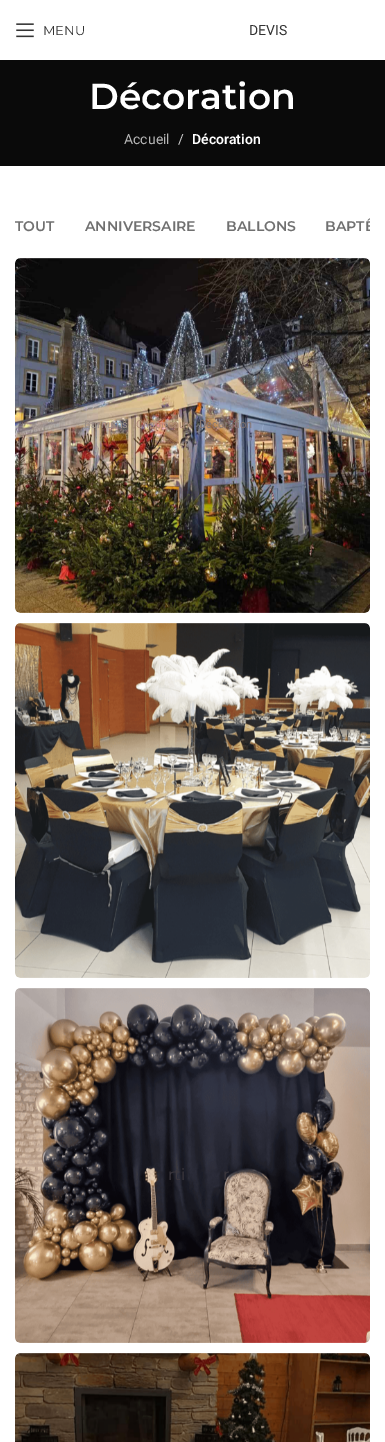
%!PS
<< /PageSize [385 1442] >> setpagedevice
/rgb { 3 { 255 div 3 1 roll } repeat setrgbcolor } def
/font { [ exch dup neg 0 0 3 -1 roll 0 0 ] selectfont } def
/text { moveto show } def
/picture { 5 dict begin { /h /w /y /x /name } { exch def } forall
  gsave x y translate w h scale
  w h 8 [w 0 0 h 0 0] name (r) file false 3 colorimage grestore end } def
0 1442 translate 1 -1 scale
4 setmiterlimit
255 255 255 rgb
0 0 385 1442 rectfill
(img_01.rgb) 16 23 18 15 picture
10 10 10 rgb
0 60 385 106 rectfill
(img_02.rgb) 15 258 355 355 picture
(img_03.rgb) 15 623 355 355 picture
(img_04.rgb) 15 988 355 355 picture
(img_05.rgb) 15 1353 355 89 picture
/Montserrat-Regular 13 font
51 51 51 rgb
(MENU) 43 35 text
/Roboto-Regular 14 font
(DEVIS) 249 35 text
/Montserrat-SemiBold 36 font
255 255 255 rgb
(Décoration) 89 109 text
/Roboto-Regular 14 font
182 182 182 rgb
(Accueil) 124 144 text
206 206 206 rgb
(/) 178 144 text
/Roboto-SemiBold 14 font
255 255 255 rgb
(Décoration) 192 144 text
/Montserrat-SemiBold 14 font
112 112 112 rgb
(TOUT) 15 231 text
(ANNIVERSAIRE) 85 231 text
(BALLONS) 226 231 text
gsave
15 206 355 42 rectclip
(BAPTÊ) 325 231 text
grestore
/Roboto-Regular 11 font
155 142 133 rgb
(Barnums) 84 428 text
174 138 118 rgb
(Chapiteaux) 136 428 text
135 119 114 rgb
(Décoration) 199 428 text
/Montserrat-Regular 16 font
60 56 62 rgb
(rti) 168 1180 text
(r) 223 1180 text
showpage
